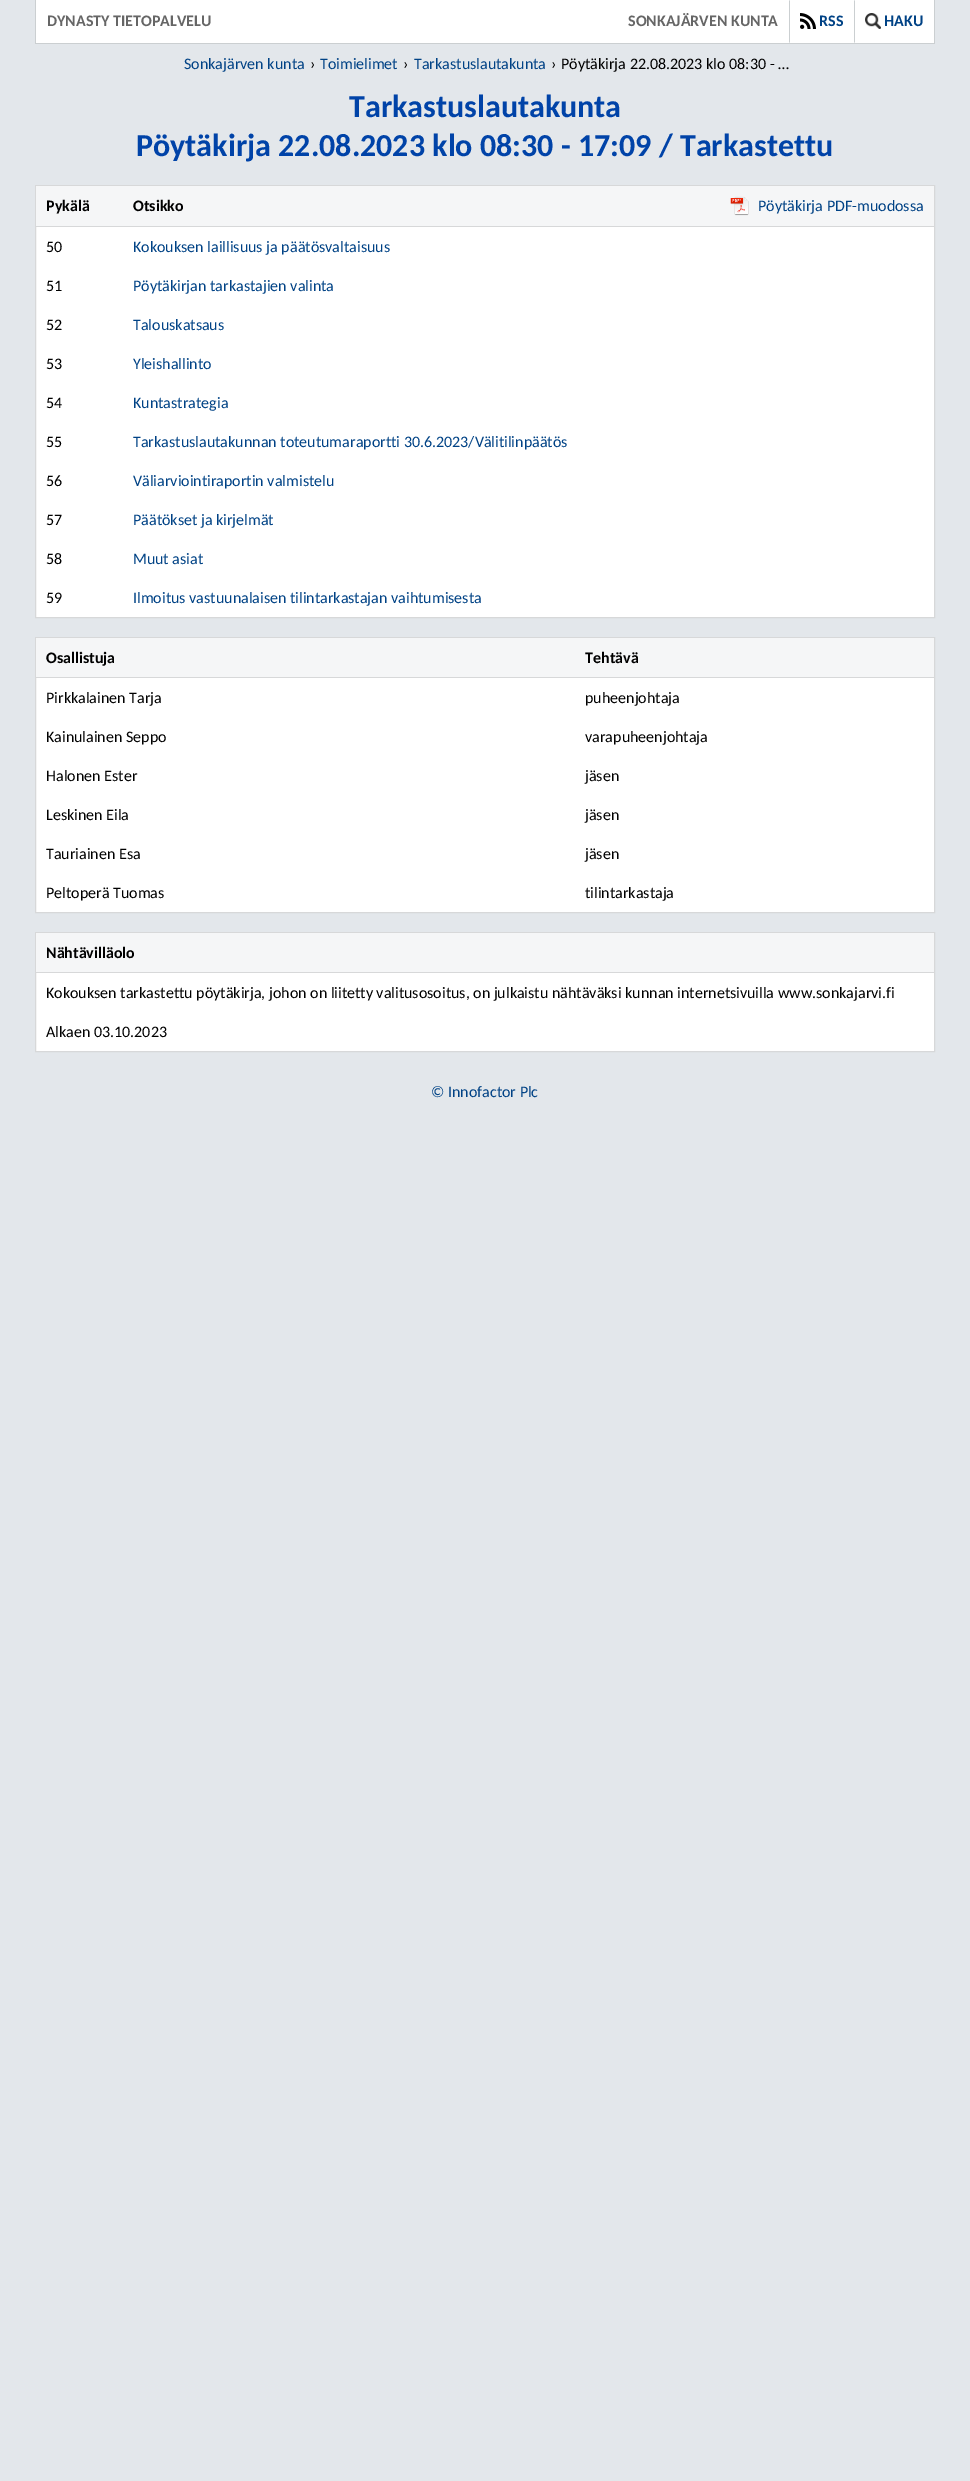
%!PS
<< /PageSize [970 2481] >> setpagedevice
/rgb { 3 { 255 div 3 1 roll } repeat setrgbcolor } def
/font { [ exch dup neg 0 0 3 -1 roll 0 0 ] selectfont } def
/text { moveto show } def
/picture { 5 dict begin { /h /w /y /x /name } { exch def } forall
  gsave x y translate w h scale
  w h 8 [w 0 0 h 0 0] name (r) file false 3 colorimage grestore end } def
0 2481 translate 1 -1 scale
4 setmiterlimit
227 231 235 rgb
0 0 970 2481 rectfill
255 255 255 rgb
36 0 898 43 rectfill
203 207 209 rgb
934 0 1 44 rectfill
35 43 900 1 rectfill
35 0 1 44 rectfill
789 43 moveto 0 -43 rlineto 1 1 rlineto 0 41 rlineto closepath fill
(img_01.rgb) 800 13 16 16 picture
854 43 moveto 0 -43 rlineto 1 1 rlineto 0 41 rlineto closepath fill
(img_02.rgb) 865 13 16 16 picture
255 255 255 rgb
36 227 898 390 rectfill
215 216 217 rgb
35.5 185.5 899 432 rectstroke
245 246 247 rgb
36 186 898 40 rectfill
215 216 217 rgb
36 226 898 1 rectfill
(img_03.rgb) 730 196 19 20 picture
255 255 255 rgb
36 678 898 234 rectfill
215 216 217 rgb
35.5 637.5 899 275 rectstroke
245 246 247 rgb
36 638 898 39 rectfill
215 216 217 rgb
36 677 898 1 rectfill
255 255 255 rgb
36 973 898 78 rectfill
215 216 217 rgb
35.5 932.5 899 119 rectstroke
245 246 247 rgb
36 933 898 39 rectfill
215 216 217 rgb
36 972 898 1 rectfill
/Carlito-Bold 16 font
102 102 102 rgb
(DYNASTY TIETOPALVELU) 47 26 text
(SONKAJÄRVEN KUNTA) 628 26 text
0 66 133 rgb
(RSS) 819 26 text
(HAKU) 884 26 text
/Carlito-Regular 16 font
(Sonkajärven kunta) 184 69 text
0 0 0 rgb
(›) 310 69 text
0 66 133 rgb
(Toimielimet) 320 69 text
0 0 0 rgb
(›) 403 69 text
0 66 133 rgb
(Tarkastuslautakunta) 414 69 text
0 0 0 rgb
(›) 551 69 text
(Pöytäkirja 22.08.2023 klo 08:30 - …) 561 69 text
/Carlito-Bold 32 font
0 67 168 rgb
(Tarkastuslautakunta) 349 117 text
(Pöytäkirja 22.08.2023 klo 08:30 - 17:09 / Tarkastettu) 136 156 text
/Carlito-Bold 16 font
0 0 0 rgb
(Pykälä) 46 211 text
(Otsikko) 133 211 text
/Carlito-Regular 16 font
0 66 133 rgb
(Pöytäkirja PDF-muodossa) 758 211 text
0 0 0 rgb
(50) 46 252 text
0 66 133 rgb
(Kokouksen laillisuus ja päätösvaltaisuus) 133 252 text
0 0 0 rgb
(51) 46 291 text
0 66 133 rgb
(Pöytäkirjan tarkastajien valinta) 133 291 text
0 0 0 rgb
(52) 46 330 text
0 66 133 rgb
(Talouskatsaus) 133 330 text
0 0 0 rgb
(53) 46 369 text
0 66 133 rgb
(Yleishallinto) 133 369 text
0 0 0 rgb
(54) 46 408 text
0 66 133 rgb
(Kuntastrategia) 133 408 text
0 0 0 rgb
(55) 46 447 text
0 66 133 rgb
(Tarkastuslautakunnan toteutumaraportti 30.6.2023/Välitilinpäätös) 133 447 text
0 0 0 rgb
(56) 46 486 text
0 66 133 rgb
(Väliarviointiraportin valmistelu) 133 486 text
0 0 0 rgb
(57) 46 525 text
0 66 133 rgb
(Päätökset ja kirjelmät) 133 525 text
0 0 0 rgb
(58) 46 564 text
0 66 133 rgb
(Muut asiat) 133 564 text
0 0 0 rgb
(59) 46 603 text
0 66 133 rgb
(Ilmoitus vastuunalaisen tilintarkastajan vaihtumisesta) 133 603 text
/Carlito-Bold 16 font
0 0 0 rgb
(Osallistuja) 46 663 text
(Tehtävä) 585 663 text
/Carlito-Regular 16 font
(Pirkkalainen Tarja) 46 703 text
(puheenjohtaja) 585 703 text
(Kainulainen Seppo) 46 742 text
(varapuheenjohtaja) 585 742 text
(Halonen Ester) 46 781 text
(jäsen) 585 781 text
(Leskinen Eila) 46 820 text
(jäsen) 585 820 text
(Tauriainen Esa) 46 859 text
(jäsen) 585 859 text
(Peltoperä Tuomas) 46 898 text
(tilintarkastaja) 585 898 text
/Carlito-Bold 16 font
(Nähtävilläolo) 46 958 text
/Carlito-Regular 16 font
(Kokouksen tarkastettu pöytäkirja, johon on liitetty valitusosoitus, on julkaistu nähtäväksi kunnan internetsivuilla www.sonkajarvi.fi) 46 998 text
(Alkaen 03.10.2023) 46 1037 text
0 66 133 rgb
(© Innofactor Plc) 431 1097 text
showpage
